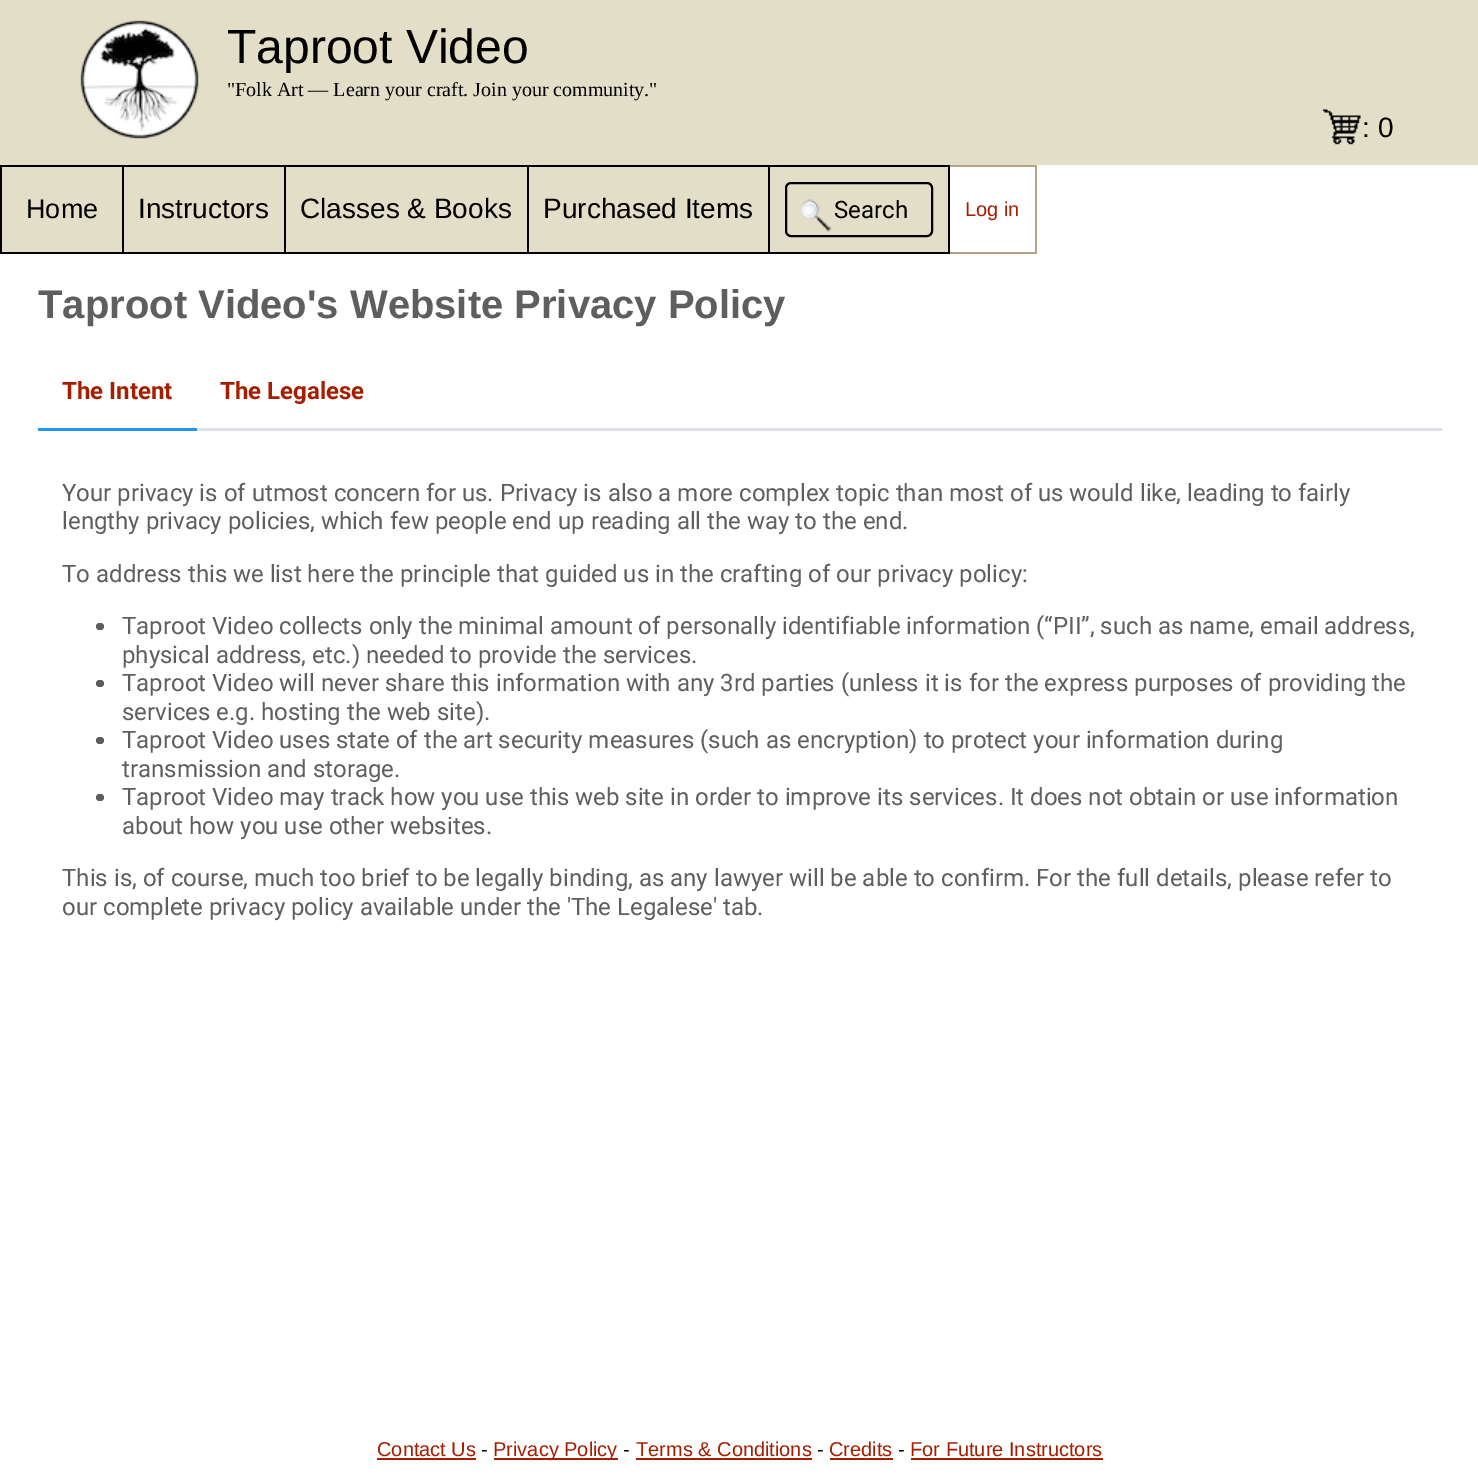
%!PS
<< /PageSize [1478 1480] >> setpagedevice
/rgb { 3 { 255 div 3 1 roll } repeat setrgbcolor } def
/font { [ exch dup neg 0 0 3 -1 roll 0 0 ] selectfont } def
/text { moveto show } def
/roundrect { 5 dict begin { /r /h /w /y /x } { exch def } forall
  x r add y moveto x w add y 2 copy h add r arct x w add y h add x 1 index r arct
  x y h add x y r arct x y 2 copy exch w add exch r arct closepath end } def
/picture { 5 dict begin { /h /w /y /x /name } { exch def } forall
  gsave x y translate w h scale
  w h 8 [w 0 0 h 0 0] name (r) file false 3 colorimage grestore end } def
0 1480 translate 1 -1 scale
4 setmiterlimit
255 255 255 rgb
0 0 1478 1480 rectfill
227 222 199 rgb
0 0 1478 165 rectfill
(img_01.rgb) 80 20 119 119 picture
(img_02.rgb) 1323 109 38 36 picture
2 167 946 85 rectfill
181 164 129 rgb
948 165 89 2 rectfill
0 0 0 rgb
768 165 182 2 rectfill
181 164 129 rgb
1035 165 2 89 rectfill
948 252 89 2 rectfill
0 0 0 rgb
948 165 2 89 rectfill
768 252 182 2 rectfill
768 165 2 89 rectfill
527 165 243 2 rectfill
527 252 243 2 rectfill
527 165 2 89 rectfill
284 165 244 2 rectfill
284 252 244 2 rectfill
284 165 2 89 rectfill
122 165 163 2 rectfill
122 252 163 2 rectfill
122 165 2 89 rectfill
0 165 123 2 rectfill
0 252 123 2 rectfill
0 165 2 89 rectfill
2 setlinewidth
786 183 146 53 5 roundrect stroke
(img_03.rgb) 800 199 32 33 picture
33 150 243 rgb
38 428 159 3 rectfill
222 226 230 rgb
197 428 1245 3 rectfill
94 94 94 rgb
96 623 8 7 3.5 roundrect fill
96 680 8 7 3.5 roundrect fill
96 737 8 7 3.5 roundrect fill
96 794 8 7 3.5 roundrect fill
166 29 0 rgb
377 1458 99 2 rectfill
494 1458 124 2 rectfill
636 1458 176 2 rectfill
830 1458 63 2 rectfill
911 1458 192 2 rectfill
/LiberationSans-Regular 48 font
0 0 0 rgb
(Taproot Video) 227 63 text
/LiberationSerif-Regular 20 font
("Folk Art — Learn your craft. Join your community.") 227 96 text
/LiberationSans-Regular 28 font
(: 0) 1362 137 text
/LiberationSans-Regular 27 font
(Home) 26 218 text
/LiberationSans-Regular 28 font
(Instructors) 138 218 text
(Classes & Books) 300 218 text
(Purchased Items) 543 218 text
/Roboto-Regular 24 font
(Search) 834 218 text
/LiberationSans-Regular 20 font
166 29 0 rgb
(Log in) 965 216 text
/LiberationSans-Bold 40 font
94 94 94 rgb
(Taproot Video's Website Privacy Policy) 38 318 text
/Roboto-Bold 24 font
166 29 0 rgb
(The Intent) 62 399 text
(The Legalese) 220 399 text
/Roboto-Regular 24 font
94 94 94 rgb
(Your privacy is of utmost concern for us. Privacy is also a more complex topic than most of us would like, leading to fairly) 62 501 text
(lengthy privacy policies, which few people end up reading all the way to the end.) 62 529 text
(To address this we list here the principle that guided us in the crafting of our privacy policy:) 62 582 text
(Taproot Video collects only the minimal amount of personally identifiable information \(“PII”, such as name, email address,) 122 634 text
(physical address, etc.\) needed to provide the services.) 122 663 text
(Taproot Video will never share this information with any 3rd parties \(unless it is for the express purposes of providing the) 122 691 text
(services e.g. hosting the web site\).) 122 720 text
(Taproot Video uses state of the art security measures \(such as encryption\) to protect your information during) 122 748 text
(transmission and storage.) 122 777 text
(Taproot Video may track how you use this web site in order to improve its services. It does not obtain or use information) 122 805 text
(about how you use other websites.) 122 834 text
(This is, of course, much too brief to be legally binding, as any lawyer will be able to confirm. For the full details, please refer to) 62 886 text
(our complete privacy policy available under the 'The Legalese' tab.) 62 915 text
/LiberationSans-Regular 20 font
166 29 0 rgb
(Contact Us) 377 1456 text
0 0 0 rgb
(-) 481 1456 text
166 29 0 rgb
(Privacy Policy) 493 1456 text
0 0 0 rgb
(-) 623 1456 text
166 29 0 rgb
(Terms & Conditions) 636 1456 text
0 0 0 rgb
(-) 817 1456 text
166 29 0 rgb
(Credits) 829 1456 text
0 0 0 rgb
(-) 898 1456 text
166 29 0 rgb
(For Future Instructors) 910 1456 text
showpage
